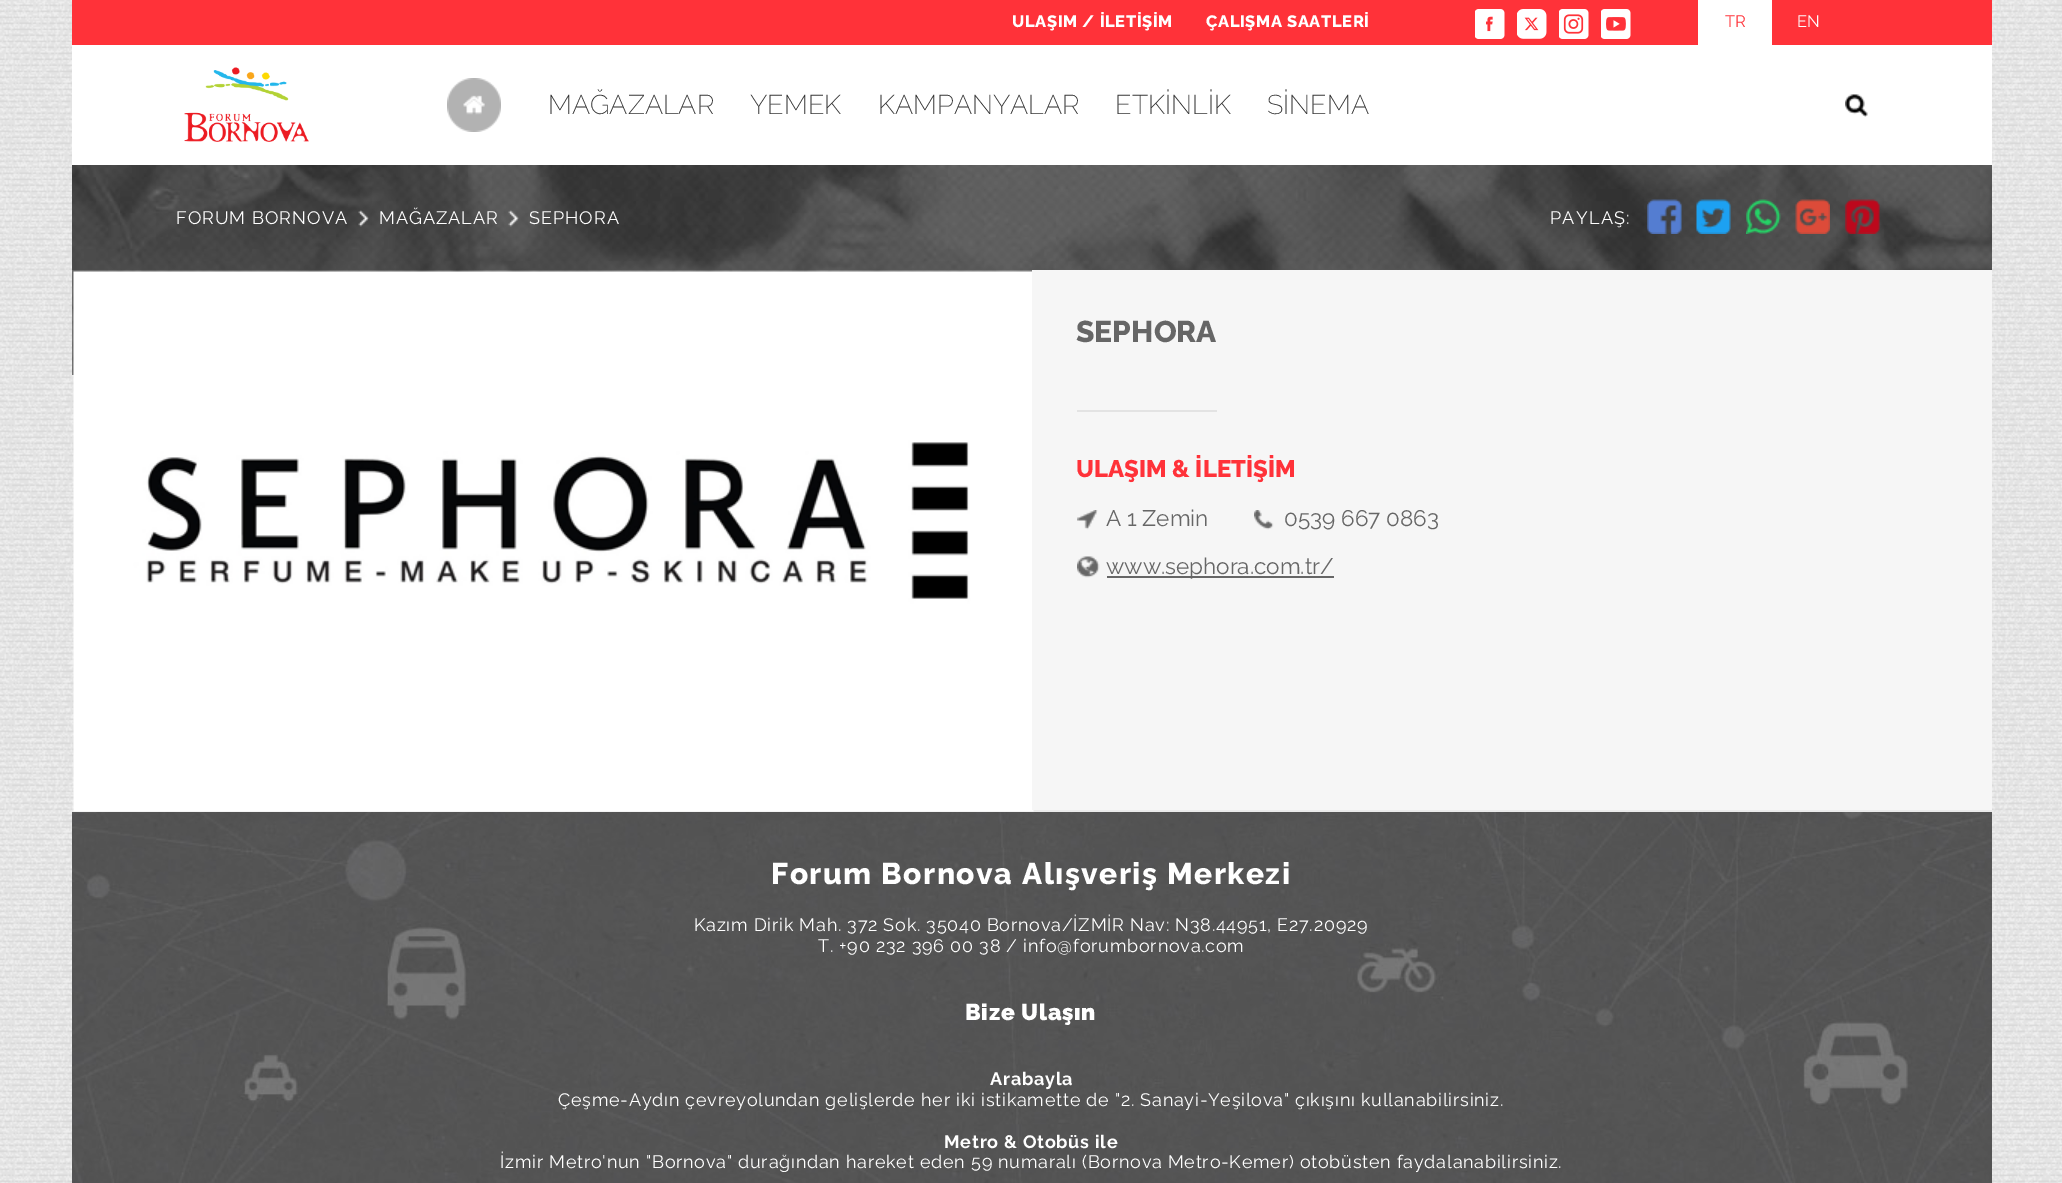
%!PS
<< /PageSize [2062 1183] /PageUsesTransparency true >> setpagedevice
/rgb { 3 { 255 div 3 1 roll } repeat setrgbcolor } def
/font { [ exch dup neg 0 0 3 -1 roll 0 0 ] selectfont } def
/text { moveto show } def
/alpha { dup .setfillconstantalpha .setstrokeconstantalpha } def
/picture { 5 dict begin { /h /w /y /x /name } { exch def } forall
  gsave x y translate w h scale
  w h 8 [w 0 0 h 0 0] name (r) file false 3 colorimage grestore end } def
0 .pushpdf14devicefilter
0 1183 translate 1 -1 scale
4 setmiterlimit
239 239 239 rgb
0 0 2062 1183 rectfill
(img_01.rgb) 0 0 2062 1183 picture
255 50 57 rgb
72 0 1920 45 rectfill
(img_02.rgb) 1475 9 30 30 picture
(img_03.rgb) 1517 9 30 30 picture
(img_04.rgb) 1559 9 30 30 picture
(img_05.rgb) 1601 9 30 30 picture
255 255 255 rgb
1698 0 74 45 rectfill
72 45 1920 120 rectfill
(img_06.rgb) 184 67 125 75 picture
(img_07.rgb) 447 78 54 54 picture
(img_08.rgb) 1845 94 23 23 picture
(img_09.rgb) 72 165 1920 210 picture
0.3 alpha
0 0 0 rgb
72 165 1920 105 rectfill
1 alpha
(img_10.rgb) 358 210 11 17 picture
(img_11.rgb) 508 210 11 17 picture
(img_12.rgb) 1647 199 35 35 picture
(img_13.rgb) 1696 199 35 35 picture
(img_14.rgb) 1746 199 35 35 picture
(img_15.rgb) 1795 199 35 35 picture
(img_16.rgb) 1845 199 35 35 picture
235 235 235 rgb
72 810 1920 2 rectfill
(img_17.rgb) 73 271 961 541 picture
246 246 246 rgb
1032 270 960 540 rectfill
227 227 227 rgb
1077 410 140 2 rectfill
(img_18.rgb) 1077 510 21 20 picture
(img_19.rgb) 1254 510 20 20 picture
(img_20.rgb) 1077 556 23 22 picture
102 102 102 rgb
1107 576 227 2 rectfill
(img_21.rgb) 72 812 1920 371 picture
/Raleway-ExtraBold 16.5 font
255 255 255 rgb
1012 27 moveto 0.6 0 (ULAŞIM / İLETİŞİM) ashow
1206 27 moveto 0.6 0 (ÇALIŞMA SAATLERİ) ashow
/Raleway-Regular 16.5 font
255 50 57 rgb
(TR) 1725 27 text
255 255 255 rgb
(EN) 1797 27 text
/Raleway-ExtraLight 27 font
51 51 51 rgb
(MAĞAZALAR) 548 114 text
(YEMEK) 750 114 text
(KAMPANYALAR) 878 114 text
(ETKİNLİK) 1115 114 text
(SİNEMA) 1267 114 text
/Raleway-Regular 18 font
255 255 255 rgb
176 224 moveto 1 0 (FORUM BORNOVA) ashow
379 224 moveto 1 0 (MAĞAZALAR) ashow
529 224 moveto 1 0 (SEPHORA) ashow
1550 224 moveto 1.25 0 (PAYLAŞ:) ashow
/Raleway-ExtraBold 30 font
102 102 102 rgb
(SEPHORA) 1076 342 text
/Raleway-ExtraBold 24 font
255 50 57 rgb
(ULAŞIM & İLETİŞİM) 1076 477 text
/Raleway-Regular 22.5 font
102 102 102 rgb
(A 1 Zemin) 1106 526 text
(0539 667 0863) 1284 526 text
(www.sephora.com.tr/) 1106 574 text
/Raleway-ExtraBold 30 font
255 255 255 rgb
771 884 moveto 1.5 0 (Forum Bornova Alışveriş Merkezi) ashow
/Raleway-Regular 18 font
694 931 moveto 0.75 0 (Kazım Dirik Mah. 372 Sok. 35040 Bornova/İZMİR Nav: N38.44951, E27.20929) ashow
818 952 moveto 0.75 0 (T. +90 232 396 00 38 / info@forumbornova.com) ashow
/Raleway-Black 22.75 font
965 1020 moveto 0.75 0 (Bize Ulaşın) ashow
/Raleway-Bold 18 font
990 1085 moveto 0.75 0 (Arabayla) ashow
/Raleway-Regular 18 font
558 1106 moveto 0.75 0 (Çeşme-Aydın çevreyolundan gelişlerde her iki istikamette de "2. Sanayi-Yeşilova" çıkışını kullanabilirsiniz.) ashow
/Raleway-Bold 18 font
944 1148 moveto 0.75 0 (Metro & Otobüs ile) ashow
/Raleway-Regular 18 font
500 1168 moveto 0.75 0 (İzmir Metro'nun "Bornova" durağından hareket eden 59 numaralı \(Bornova Metro-Kemer\) otobüsten faydalanabilirsiniz.) ashow
.poppdf14devicefilter showpage
